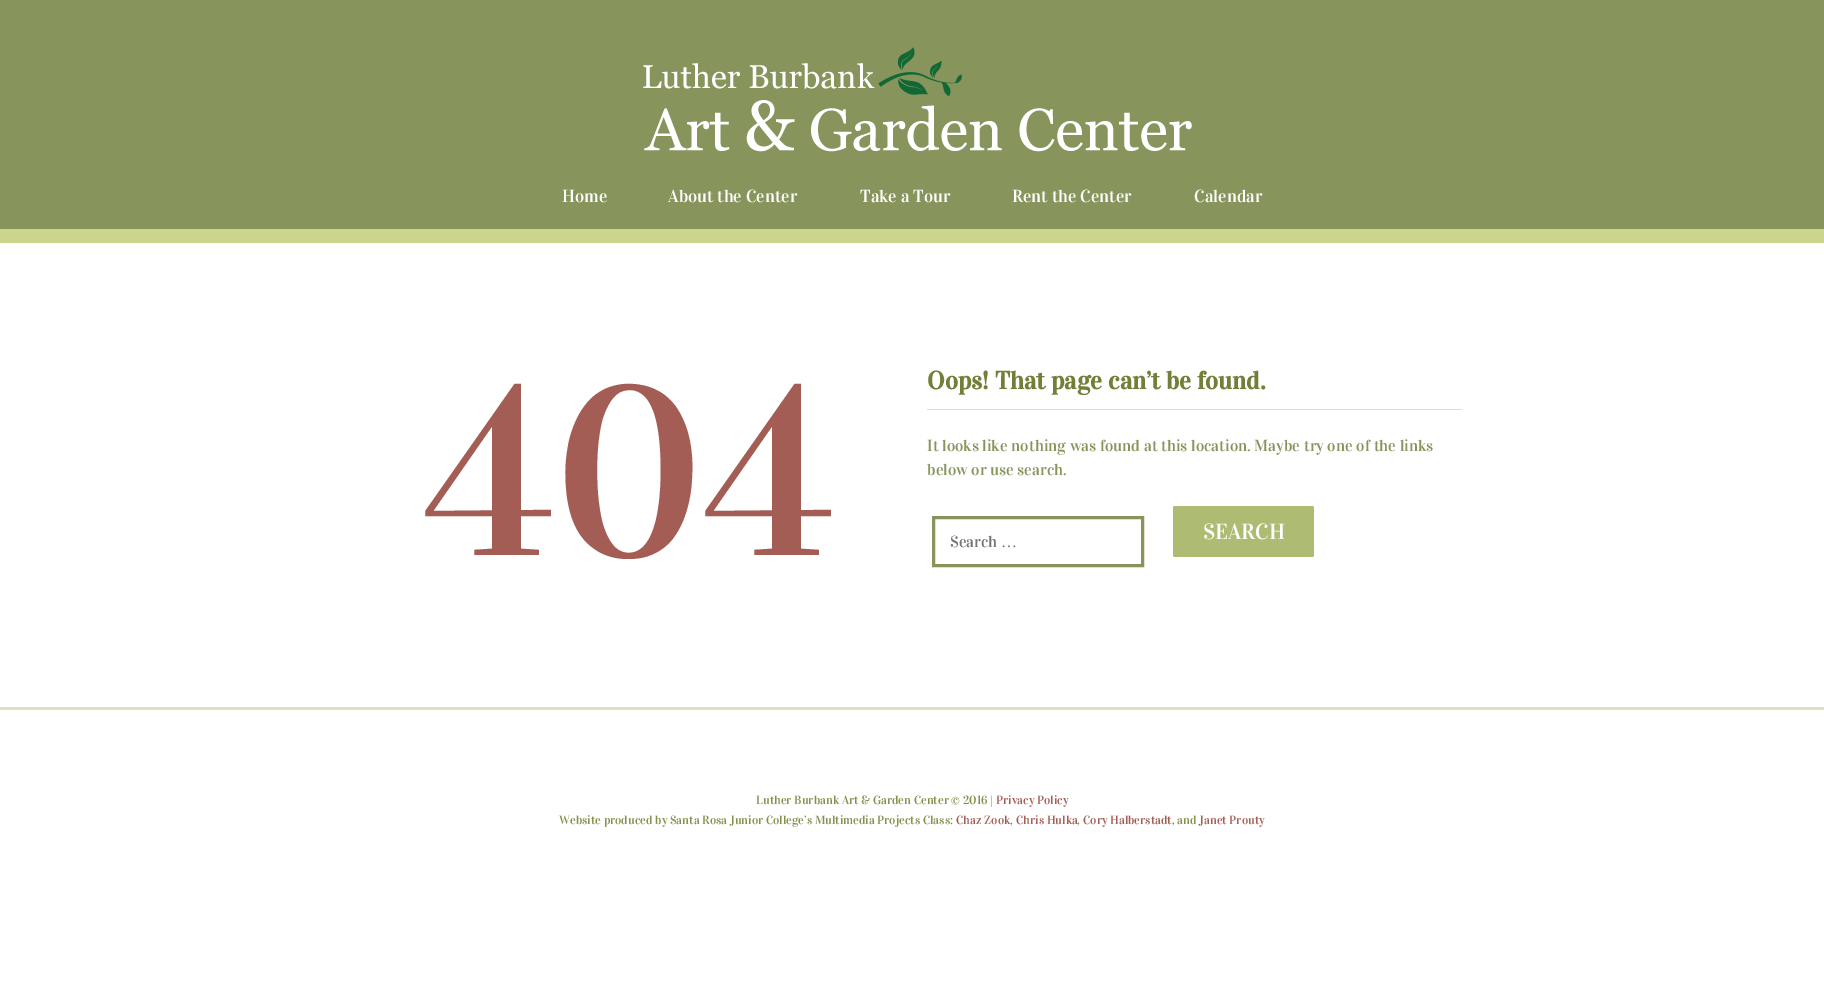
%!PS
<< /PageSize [1824 981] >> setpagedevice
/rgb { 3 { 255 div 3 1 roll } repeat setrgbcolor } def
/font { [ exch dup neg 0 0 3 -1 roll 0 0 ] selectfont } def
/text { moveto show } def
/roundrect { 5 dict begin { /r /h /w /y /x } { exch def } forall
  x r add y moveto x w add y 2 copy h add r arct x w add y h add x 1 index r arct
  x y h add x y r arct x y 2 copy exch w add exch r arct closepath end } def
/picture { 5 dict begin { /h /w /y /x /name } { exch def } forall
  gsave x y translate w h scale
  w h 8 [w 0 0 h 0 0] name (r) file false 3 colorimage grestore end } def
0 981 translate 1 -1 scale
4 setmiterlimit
255 255 255 rgb
0 0 1824 981 rectfill
135 149 93 rgb
0 0 1824 229 rectfill
(img_01.rgb) 643 47 549 105 picture
203 214 140 rgb
0 229 1824 14 rectfill
221 221 221 rgb
927 409 535 1 rectfill
174 187 114 rgb
1173 506 141 51 2 roundrect fill
135 149 93 rgb
3 setlinewidth
933.5 517.5 209 48 rectstroke
219 225 192 rgb
0 707 1824 3 rectfill
/Vidaloka-Regular 17.5 font
255 255 255 rgb
(Home) 562 202 text
(About the Center) 668 202 text
(Take a Tour) 860 202 text
(Rent the Center) 1012 202 text
(Calendar) 1194 202 text
/Vidaloka-Regular 240 font
164 93 85 rgb
(404) 424 555 text
/Vidaloka-Bold 25 font
115 127 57 rgb
(Oops! That page can’t be found.) 927 389 text
/Vidaloka-Regular 16 font
135 149 93 rgb
(It looks like nothing was found at this location. Maybe try one of the links) 927 451 text
(below or use search.) 927 475 text
/Vidaloka-Regular 22 font
255 255 255 rgb
(SEARCH) 1203 539 text
/Vidaloka-Regular 16 font
117 117 117 rgb
(Search) 950 547 text
/LiberationSerif-Regular 16 font
(…) 1001 547 text
/Vidaloka-Regular 12 font
132 144 75 rgb
(Luther Burbank Art & Garden Center © 2016 |) 756 804 text
164 93 85 rgb
(Privacy Policy) 996 804 text
132 144 75 rgb
(Website produced by Santa Rosa Junior College’s Multimedia Projects Class:) 559 824 text
164 93 85 rgb
(Chaz Zook) 956 824 text
132 144 75 rgb
(,) 1010 824 text
164 93 85 rgb
(Chris Hulka) 1016 824 text
132 144 75 rgb
(,) 1077 824 text
164 93 85 rgb
(Cory Halberstadt) 1083 824 text
132 144 75 rgb
(, and) 1172 824 text
164 93 85 rgb
(Janet Prouty) 1199 824 text
showpage
